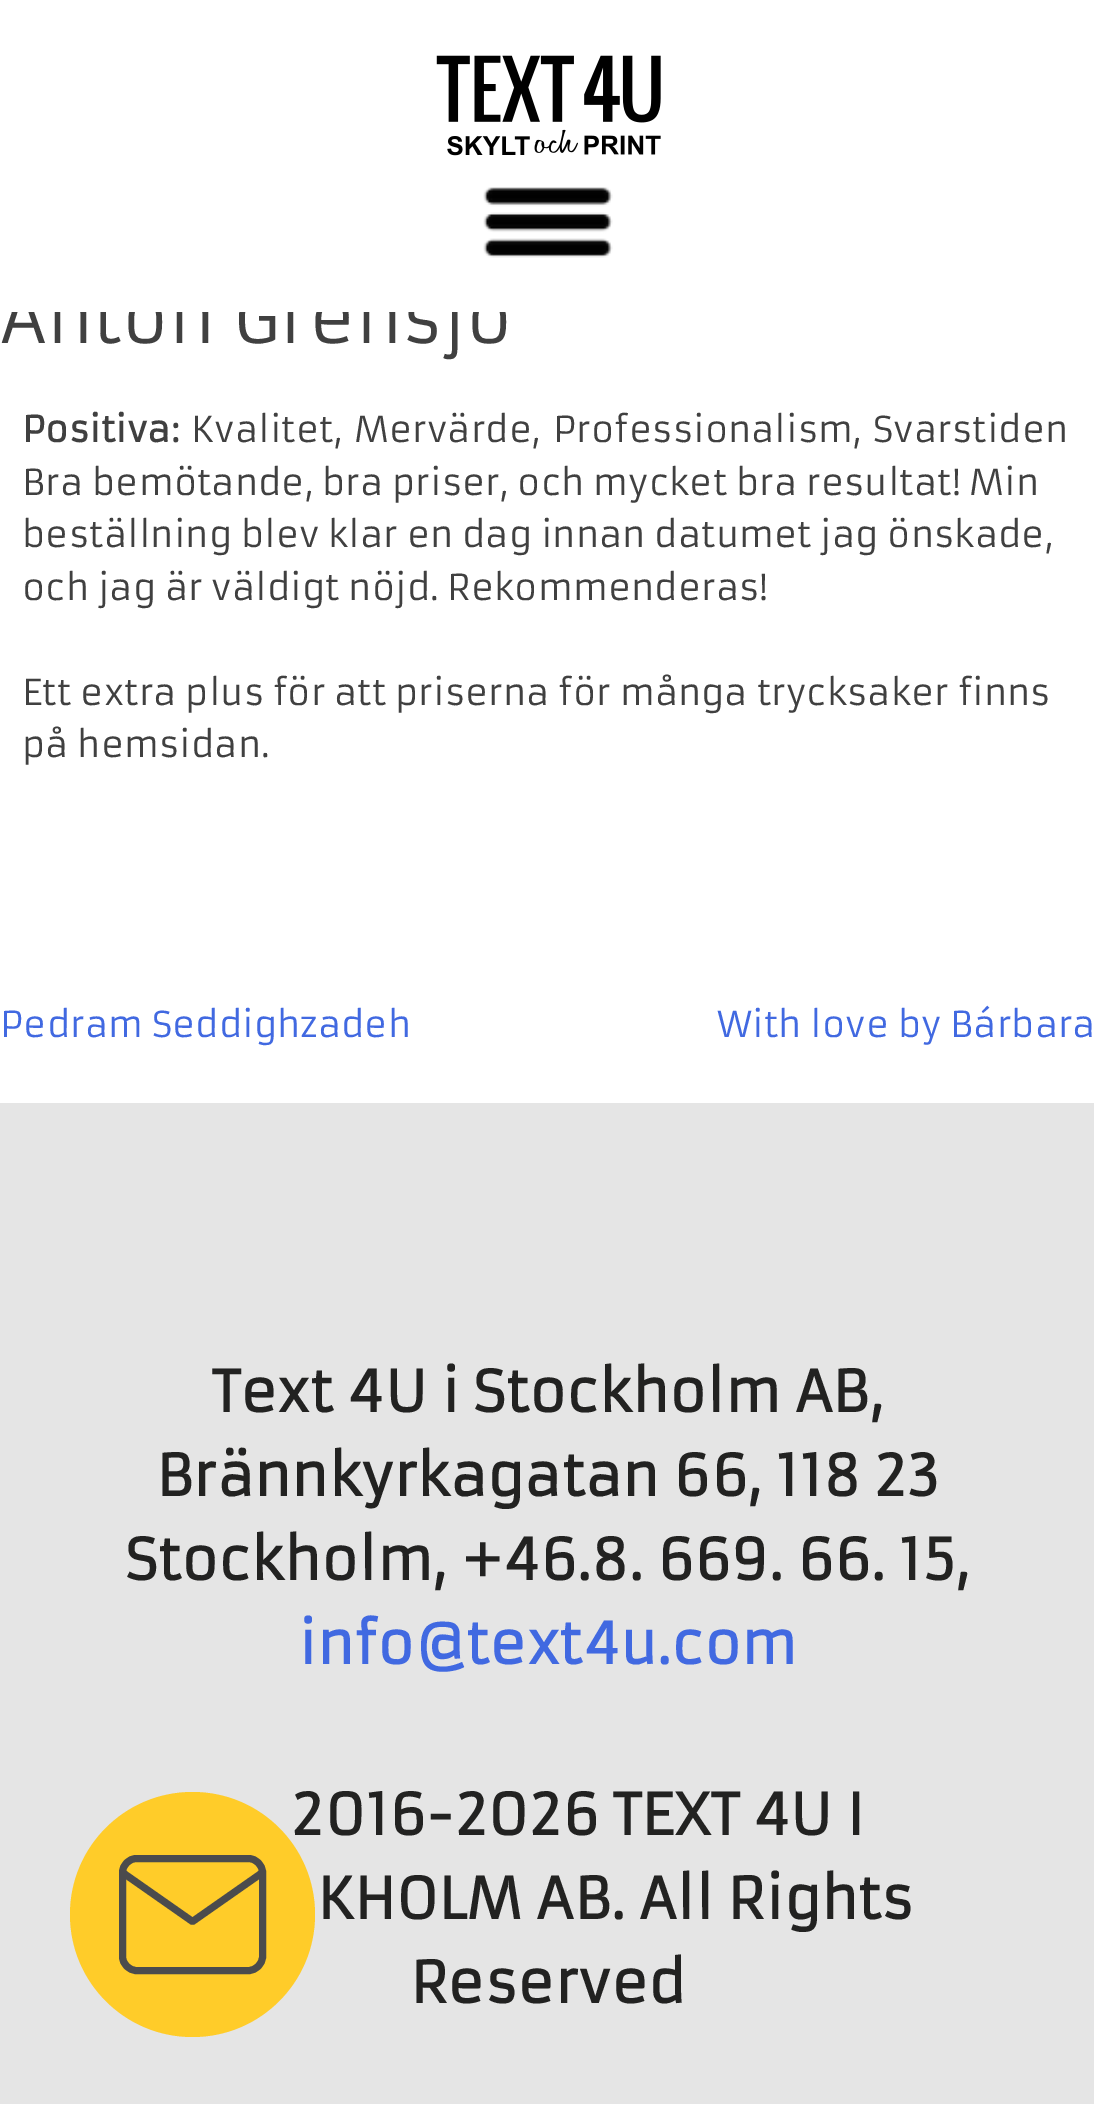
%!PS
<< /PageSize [1094 2104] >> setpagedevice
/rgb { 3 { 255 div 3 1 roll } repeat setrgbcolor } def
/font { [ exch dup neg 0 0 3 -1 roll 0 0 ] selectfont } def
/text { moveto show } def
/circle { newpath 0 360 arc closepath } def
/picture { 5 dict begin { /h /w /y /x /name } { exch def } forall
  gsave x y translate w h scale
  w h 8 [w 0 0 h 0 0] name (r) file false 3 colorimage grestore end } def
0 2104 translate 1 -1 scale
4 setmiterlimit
255 255 255 rgb
0 0 1094 2104 rectfill
(img_01.rgb) 436 55 225 101 picture
(img_02.rgb) 483 187 130 71 picture
229 229 229 rgb
0 1103 1094 1001 rectfill
/Armata-Regular 70 font
64 64 64 rgb
(Anton Grensjö) 0 343 text
255 255 255 rgb
11 284 495 28 rectfill
/Armata-Bold 35 font
64 64 64 rgb
(Positiva:) 22 442 text
/Armata-Regular 35 font
(Kvalitet,) 191 442 text
(Mervärde,) 354 442 text
(Professionalism,) 553 442 text
(Svarstiden) 873 442 text
(Bra bemötande, bra priser, och mycket bra resultat! Min) 22 495 text
(beställning blev klar en dag innan datumet jag önskade,) 22 547 text
(och jag är väldigt nöjd. Rekommenderas!) 22 600 text
(Ett extra plus för att priserna för många trycksaker finns) 22 705 text
(på hemsidan.) 22 757 text
65 105 225 rgb
(Pedram Seddighzadeh) 0 1037 text
(With love by Bárbara) 717 1037 text
/Armata-Bold 56 font
34 34 33 rgb
(Text 4U i Stockholm AB,) 212 1412 text
(Brännkyrkagatan 66, 118 23) 156 1496 text
(Stockholm, +46.8. 669. 66. 15,) 125 1580 text
65 105 225 rgb
(info@text4u.com) 298 1664 text
34 34 33 rgb
(2016-2026 TEXT 4U I) 291 1835 text
(KHOLM AB. All Rights) 317 1919 text
(Reserved) 410 2003 text
255 204 41 rgb
192.5 1914.5 122.5 circle fill
75 75 77 rgb
7 setlinewidth
1 setlinecap
1 setlinejoin
136.5 1858.5 moveto 112 0 rlineto 7.5 0 14 6.5 14 14 rcurveto 0 84 rlineto 0 7.5 -6.5 14 -14 14 rcurveto -112 0 rlineto -7.5 0 -14 -6.5 -14 -14 rcurveto 0 -84 rlineto 0 -7.5 6.5 -14 14 -14 rcurveto closepath stroke
262.5 1872.5 moveto -70 49 rlineto -70 -49 rlineto stroke
showpage
